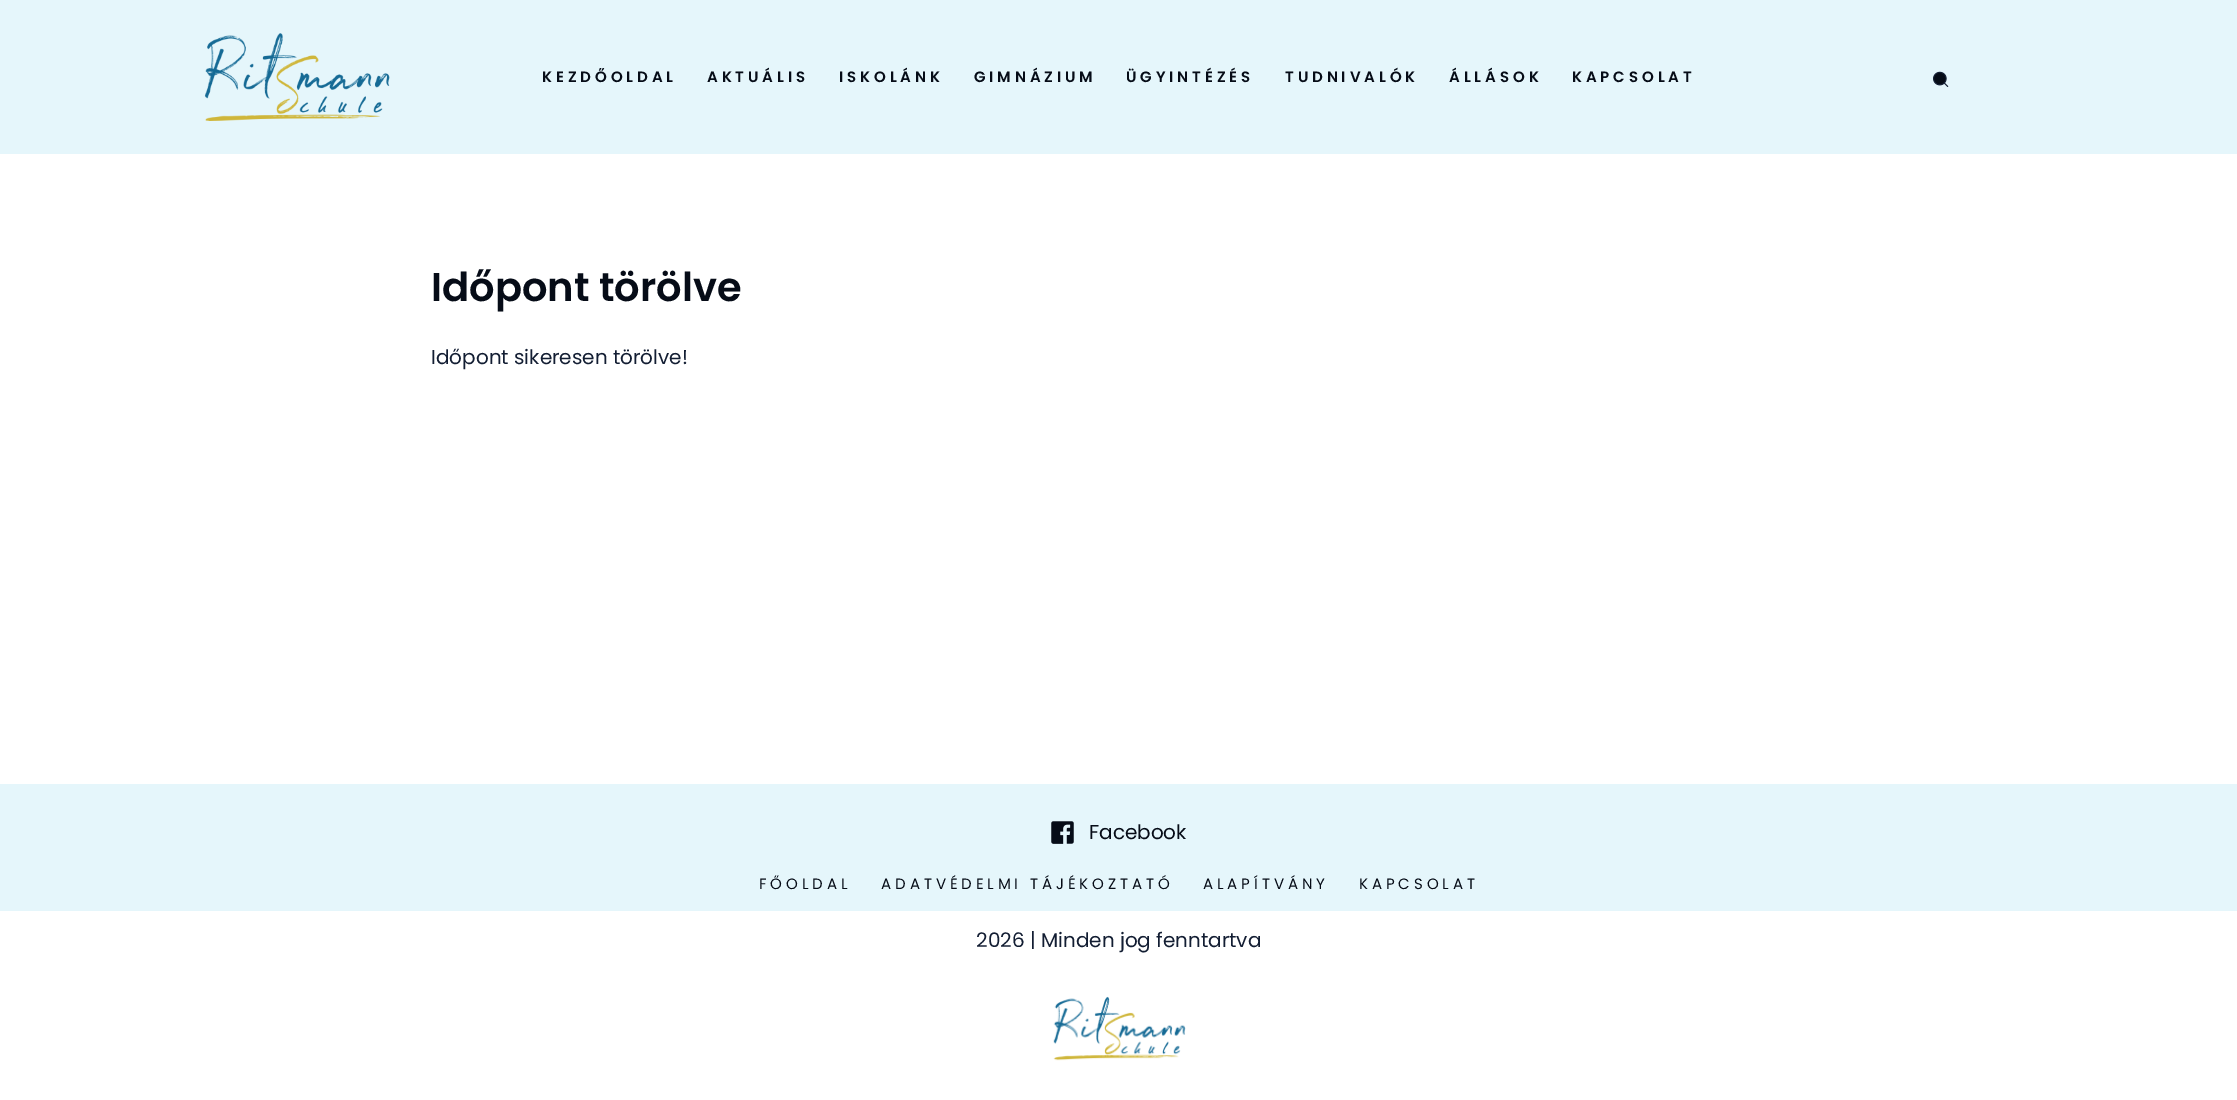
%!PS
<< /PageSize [2237 1100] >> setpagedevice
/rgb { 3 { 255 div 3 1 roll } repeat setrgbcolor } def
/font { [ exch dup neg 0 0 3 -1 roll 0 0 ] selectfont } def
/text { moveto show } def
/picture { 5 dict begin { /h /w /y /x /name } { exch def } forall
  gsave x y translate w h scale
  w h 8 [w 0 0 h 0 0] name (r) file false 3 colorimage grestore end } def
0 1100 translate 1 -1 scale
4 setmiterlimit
255 255 255 rgb
0 0 2237 1100 rectfill
229 246 251 rgb
0 0 2237 154 rectfill
(img_01.rgb) 204 33 186 88 picture
(img_02.rgb) 1933 71 16 16 picture
0 784 2237 127 rectfill
(img_03.rgb) 1051 821 23 23 picture
(img_04.rgb) 1053 996 133 65 picture
/Poppins-SemiBold 15 font
6 12 23 rgb
542 82 moveto 3.9 0 (KEZDŐOLDAL) ashow
707 82 moveto 3.9 0 (AKTUÁLIS) ashow
839 82 moveto 3.9 0 (ISKOLÁNK) ashow
974 82 moveto 3.9 0 (GIMNÁZIUM) ashow
1126 82 moveto 3.9 0 (ÜGYINTÉZÉS) ashow
1285 82 moveto 3.9 0 (TUDNIVALÓK) ashow
1449 82 moveto 3.9 0 (ÁLLÁSOK) ashow
1572 82 moveto 3.9 0 (KAPCSOLAT) ashow
/Poppins-SemiBold 40 font
(Időpont törölve) 431 301 text
/Poppins-Regular 20 font
19 30 51 rgb
(Időpont sikeresen törölve!) 431 364 text
6 12 23 rgb
(Facebook) 1089 839 text
/Poppins-Regular 15 font
759 889 moveto 3.9 0 (FŐOLDAL) ashow
881 889 moveto 3.9 0 (ADATVÉDELMI TÁJÉKOZTATÓ) ashow
1203 889 moveto 3.9 0 (ALAPÍTVÁNY) ashow
1359 889 moveto 3.9 0 (KAPCSOLAT) ashow
/Poppins-Regular 20 font
19 30 51 rgb
(2026 | Minden jog fenntartva) 976 947 text
showpage
